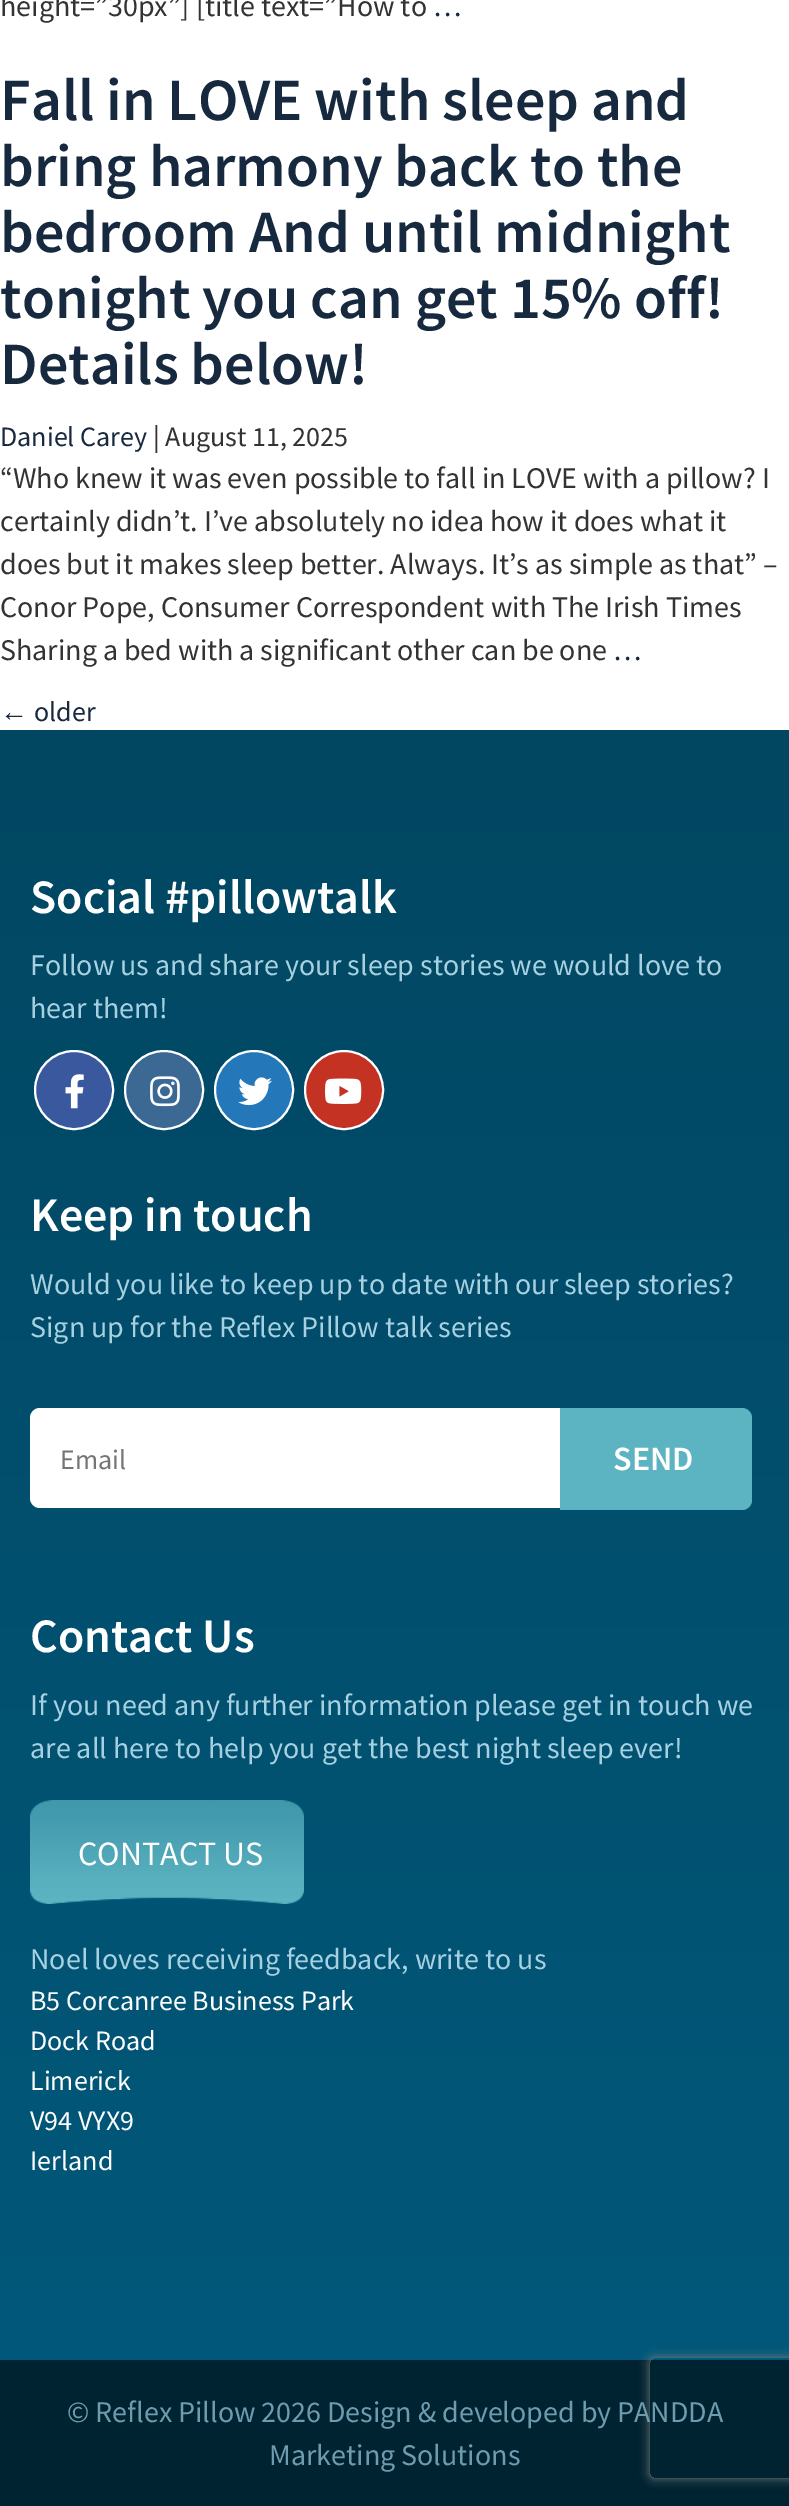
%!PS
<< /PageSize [789 2506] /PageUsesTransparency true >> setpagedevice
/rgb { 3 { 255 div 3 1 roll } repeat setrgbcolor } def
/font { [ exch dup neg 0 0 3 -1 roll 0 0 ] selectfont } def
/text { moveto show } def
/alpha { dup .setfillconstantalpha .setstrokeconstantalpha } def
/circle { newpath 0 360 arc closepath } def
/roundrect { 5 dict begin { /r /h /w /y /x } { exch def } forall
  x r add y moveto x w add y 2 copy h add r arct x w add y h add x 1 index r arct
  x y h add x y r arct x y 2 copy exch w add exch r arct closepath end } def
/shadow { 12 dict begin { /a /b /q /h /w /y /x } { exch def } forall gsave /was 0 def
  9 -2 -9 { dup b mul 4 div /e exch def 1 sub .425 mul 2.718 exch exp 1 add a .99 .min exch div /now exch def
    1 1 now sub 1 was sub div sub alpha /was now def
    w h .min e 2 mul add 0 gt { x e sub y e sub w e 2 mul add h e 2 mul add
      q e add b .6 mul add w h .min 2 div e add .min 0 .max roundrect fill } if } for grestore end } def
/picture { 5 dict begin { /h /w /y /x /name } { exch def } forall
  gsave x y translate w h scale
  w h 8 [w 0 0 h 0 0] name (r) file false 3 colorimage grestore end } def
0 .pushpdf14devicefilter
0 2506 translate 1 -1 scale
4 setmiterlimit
255 255 255 rgb
0 0 789 2506 rectfill
gsave 0 730 moveto 789 0 rlineto 0 1630 rlineto -789 0 rlineto closepath clip newpath
<< /ShadingType 2 /ColorSpace /DeviceRGB /Coords [395 730 395 2360] /Extend [true true] /Function << /FunctionType 2 /Domain [0 1] /C0 [0.004 0.278 0.384] /C1 [0.004 0.345 0.478] /N 1 >> >> shfill grestore
58 88 157 rgb
74 1090 39 circle gsave fill grestore
255 255 255 rgb
2 setlinewidth
stroke
(img_01.rgb) 65 1074 19 35 picture
59 105 148 rgb
164 1090 39 circle gsave fill grestore
255 255 255 rgb
stroke
(img_02.rgb) 150 1076 30 31 picture
36 120 186 rgb
254 1090 39 circle gsave fill grestore
255 255 255 rgb
stroke
(img_03.rgb) 238 1077 34 29 picture
195 50 35 rgb
344 1090 39 circle gsave fill grestore
255 255 255 rgb
stroke
(img_04.rgb) 325 1078 37 26 picture
40 1408 moveto 528 0 rlineto 0 100 rlineto -528 0 rlineto -5.5 0 -10 -4.5 -10 -10 rcurveto 0 -80 rlineto 0 -5.5 4.5 -10 10 -10 rcurveto closepath fill
92 179 193 rgb
560 1408 moveto 182 0 rlineto 5.5 0 10 4.5 10 10 rcurveto 0 82 rlineto 0 5.5 -4.5 10 -10 10 rcurveto -182 0 rlineto closepath fill
(img_05.rgb) 30 1800 274 104 picture
0 35 49 rgb
0 2360 789 146 rectfill
gsave
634 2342 moveto 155 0 rlineto 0 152 rlineto -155 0 rlineto closepath 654 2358 moveto 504 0 rlineto 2 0 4 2 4 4 rcurveto 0 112 rlineto 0 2 -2 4 -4 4 rcurveto -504 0 rlineto -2 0 -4 -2 -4 -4 rcurveto 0 -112 rlineto 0 -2 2 -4 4 -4 rcurveto closepath eoclip newpath
128 128 128 rgb
650 2358 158 120 4 5 1 shadow
grestore
/SourceSansPro-Regular 30 font
51 51 51 rgb
(height=”30px”] [title text=”How to) 0 16 text
23 41 62 rgb
(…) 433 16 text
/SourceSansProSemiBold-SemiBold 60 font
(Fall in LOVE with sleep and) 0 120 text
(bring harmony back to the) 0 186 text
(bedroom And until midnight) 0 252 text
(tonight you can get 15% off!) 0 318 text
(Details below!) 0 384 text
/SourceSansPro-Regular 28 font
(Daniel Carey) 0 446 text
51 51 51 rgb
(| August 11, 2025) 153 446 text
/SourceSansPro-Regular 30 font
(“Who knew it was even possible to fall in LOVE with a pillow? I) 0 488 text
(certainly didn’t. I’ve absolutely no idea how it does what it) 0 531 text
(does but it makes sleep better. Always. It’s as simple as that” –) 0 574 text
(Conor Pope, Consumer Correspondent with The Irish Times) 0 617 text
(Sharing a bed with a significant other can be one) 0 660 text
23 41 62 rgb
(…) 613 660 text
/LiberationSans-Regular 28 font
(←) 0 721 text
/SourceSansPro-Regular 28 font
(older) 34 721 text
/SourceSansProSemiBold-SemiBold 48 font
255 255 255 rgb
(Social #pillowtalk) 30 913 text
/SourceSansPro-Regular 30 font
167 209 225 rgb
(Follow us and share your sleep stories we would love to) 30 975 text
(hear them!) 30 1018 text
/SourceSansProSemiBold-SemiBold 48 font
255 255 255 rgb
(Keep in touch) 30 1231 text
/SourceSansPro-Regular 30 font
167 209 225 rgb
(Would you like to keep up to date with our sleep stories?) 30 1294 text
(Sign up for the Reflex Pillow talk series) 30 1337 text
/SourceSansPro-Regular 28 font
117 117 117 rgb
(Email) 60 1469 text
/SourceSansProSemiBold-SemiBold 34 font
255 255 255 rgb
(SEND) 613 1470 text
/SourceSansProSemiBold-SemiBold 48 font
(Contact Us) 30 1652 text
/SourceSansPro-Regular 30 font
167 209 225 rgb
(If you need any further information please get in touch we) 30 1715 text
(are all here to help you get the best night sleep ever!) 30 1758 text
/SourceSansPro-Regular 34 font
255 255 255 rgb
(CONTACT US) 78 1865 text
/SourceSansPro-Regular 30 font
167 209 225 rgb
(Noel loves receiving feedback, write to us) 30 1969 text
/SourceSansPro-Regular 28 font
255 255 255 rgb
(B5 Corcanree Business Park) 30 2010 text
(Dock Road) 30 2050 text
(Limerick) 30 2090 text
(V94 VYX9) 30 2130 text
(Ierland) 30 2170 text
/SourceSansPro-Regular 30 font
110 156 174 rgb
(© Reflex Pillow 2026 Design & developed by PANDDA) 67 2422 text
(Marketing Solutions) 269 2465 text
.poppdf14devicefilter showpage
